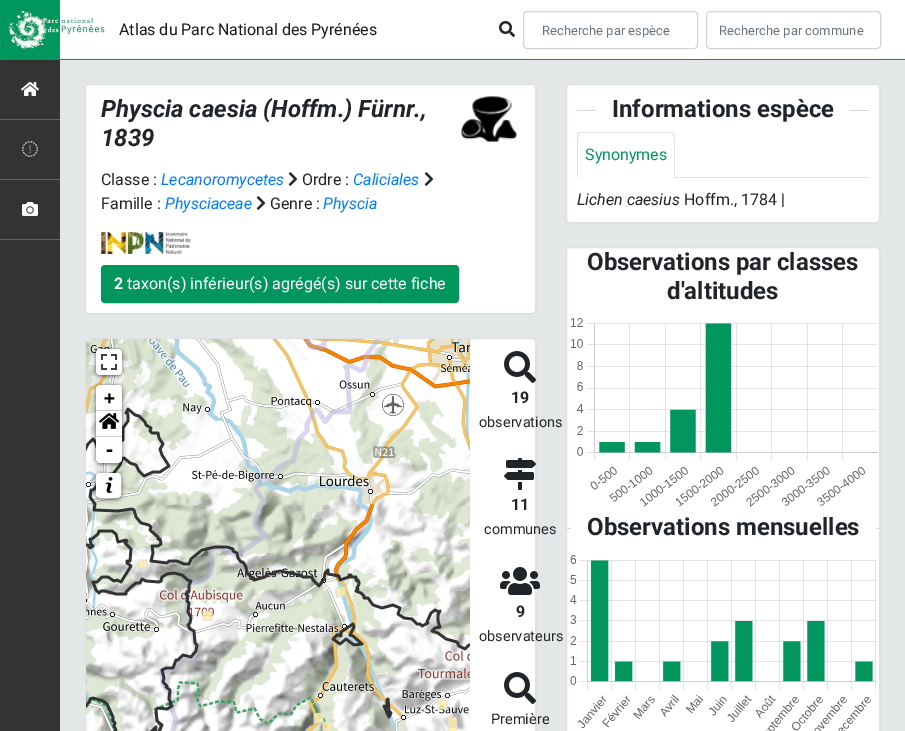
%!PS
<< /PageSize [905 731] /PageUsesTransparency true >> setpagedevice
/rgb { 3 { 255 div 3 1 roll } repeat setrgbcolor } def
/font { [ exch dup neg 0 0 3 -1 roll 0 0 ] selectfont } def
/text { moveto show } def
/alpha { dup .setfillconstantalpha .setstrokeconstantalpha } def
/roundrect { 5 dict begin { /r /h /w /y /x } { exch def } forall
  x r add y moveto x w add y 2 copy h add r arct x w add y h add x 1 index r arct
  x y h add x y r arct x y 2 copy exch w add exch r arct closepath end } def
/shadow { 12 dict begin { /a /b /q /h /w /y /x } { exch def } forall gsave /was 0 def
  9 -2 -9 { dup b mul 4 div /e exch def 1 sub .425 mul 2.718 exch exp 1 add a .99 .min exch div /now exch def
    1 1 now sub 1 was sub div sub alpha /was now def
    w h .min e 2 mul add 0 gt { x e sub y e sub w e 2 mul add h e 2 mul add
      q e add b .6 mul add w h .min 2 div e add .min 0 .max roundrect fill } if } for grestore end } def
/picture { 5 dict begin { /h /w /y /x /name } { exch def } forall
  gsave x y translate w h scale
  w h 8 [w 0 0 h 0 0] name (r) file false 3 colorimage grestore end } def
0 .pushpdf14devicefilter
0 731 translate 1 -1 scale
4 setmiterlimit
227 231 232 rgb
0 0 905 731 rectfill
255 255 255 rgb
105 0 800 59 rectfill
1 150 94 rgb
0 59 905 1 rectfill
(img_01.rgb) 0 0 105 59 picture
(img_02.rgb) 499 21 16 16 picture
206 212 218 rgb
523.5 11.5 174 37 3.5 roundrect stroke
706.5 11.5 174 37 3.5 roundrect stroke
51 51 51 rgb
0 60 60 671 rectfill
1 150 94 rgb
0 119 60 1 rectfill
(img_03.rgb) 21 82 18 14 picture
0 179 60 1 rectfill
(img_04.rgb) 22 141 16 16 picture
0 239 60 1 rectfill
(img_05.rgb) 22 202 16 14 picture
255 255 255 rgb
85 84 451 230 4 roundrect fill
0.12 alpha
0 0 0 rgb
85.5 84.5 450 229 3.5 roundrect stroke
1 alpha
(img_06.rgb) 288 172 10 14 picture
(img_06.rgb) 424 172 10 14 picture
(img_06.rgb) 256 196 10 14 picture
(img_07.rgb) 101 232 90 22 picture
1 150 94 rgb
101.5 265.5 357 37 3.5 roundrect gsave fill grestore
stroke
(img_08.rgb) 461 96 56 46 picture
255 255 255 rgb
85 338 451 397 4 roundrect fill
0.12 alpha
0 0 0 rgb
85.5 338.5 450 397 3.5 roundrect stroke
1 alpha
(img_09.rgb) 86 339 58 179 picture
(img_10.rgb) 144 339 256 179 picture
(img_11.rgb) 400 339 70 179 picture
(img_12.rgb) 86 518 58 213 picture
(img_13.rgb) 144 518 256 213 picture
(img_14.rgb) 400 518 70 213 picture
(img_15.rgb) 86 407 384 324 picture
96 350 26 26 4 2.5 0.65 shadow
255 255 255 rgb
96 349 26 26 4 roundrect fill
(img_16.rgb) 101 354 16 16 picture
0 0 0 rgb
96 386 26 78 4 2.5 0.65 shadow
255 255 255 rgb
100 385 moveto 18 0 rlineto 2 0 4 2 4 4 rcurveto 0 22 rlineto -26 0 rlineto 0 -22 rlineto 0 -2 2 -4 4 -4 rcurveto closepath fill
204 204 204 rgb
96 410 26 1 rectfill
255 255 255 rgb
96 411 26 25 rectfill
204 204 204 rgb
96 436 26 1 rectfill
(img_17.rgb) 99 413 21 16 picture
255 255 255 rgb
96 437 moveto 26 0 rlineto 0 22 rlineto 0 2 -2 4 -4 4 rcurveto -18 0 rlineto -2 0 -4 -2 -4 -4 rcurveto closepath fill
0 0 0 rgb
96 474 25 25 4 2.5 0.65 shadow
255 255 255 rgb
96.5 473.5 24 24 3.5 roundrect gsave fill grestore
stroke
(img_18.rgb) 105 477 8 16 picture
(img_19.rgb) 504 351 32 32 picture
(img_20.rgb) 504 458 32 32 picture
(img_21.rgb) 500 567 40 28 picture
(img_19.rgb) 504 672 32 32 picture
566 84 314 139 4 roundrect fill
0.12 alpha
0 0 0 rgb
566.5 84.5 313 138 3.5 roundrect stroke
1 alpha
215 215 215 rgb
577 110 19 1 rectfill
850 110 19 1 rectfill
222 226 230 rgb
675 177 194 1 rectfill
581 132 moveto -3 1 rlineto 1 1 rlineto 2 -1 rlineto 90 0 rlineto 2 1 rlineto 1 -1 rlineto -3 -1 rlineto closepath fill
675 178 moveto 0 -42 rlineto 0 -1 -1 -2 -1 -3 rcurveto -1 1 rlineto 2 2 1 38 1 43 rcurveto closepath fill
255 255 255 rgb
675 178 moveto -1 -1 rlineto -96 0 rlineto -1 1 rlineto closepath fill
222 226 230 rgb
577 178 moveto 1 -1 rlineto 0 -5 -1 -41 1 -43 rcurveto -1 -1 rlineto -1 3 rlineto closepath fill
255 255 255 rgb
566 247 314 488 4 roundrect fill
0.12 alpha
0 0 0 rgb
566.5 247.5 313 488 3.5 roundrect stroke
1 alpha
(img_22.rgb) 570 318 308 189 picture
215 215 215 rgb
567 528 4 1 rectfill
876 528 3 1 rectfill
(img_23.rgb) 570 555 306 176 picture
/Roboto-Regular 16 font
26 26 26 rgb
(Atlas du Parc National des Pyrénées) 119 35 text
/Roboto-Regular 13 font
108 117 125 rgb
(Recherche par espèce) 542 35 text
(Recherche par commune) 719 35 text
/Roboto-BoldItalic 24 font
33 37 41 rgb
(Physcia caesia \(Hoffm.\) Fürnr.,) 101 117 text
(1839) 101 146 text
/Roboto-Regular 16 font
(Classe :) 101 185 text
/Roboto-Italic 16 font
0 123 255 rgb
(Lecanoromycetes) 161 185 text
/Roboto-Regular 16 font
33 37 41 rgb
(Ordre :) 302 185 text
/Roboto-Italic 16 font
0 123 255 rgb
(Caliciales) 353 185 text
/Roboto-Regular 16 font
33 37 41 rgb
(Famille :) 101 209 text
/Roboto-Italic 16 font
0 123 255 rgb
(Physciaceae) 165 209 text
/Roboto-Regular 16 font
33 37 41 rgb
(Genre :) 270 209 text
/Roboto-Italic 16 font
0 123 255 rgb
(Physcia) 323 209 text
/Roboto-Bold 16 font
255 255 255 rgb
(2) 114 289 text
/Roboto-Regular 16 font
(taxon\(s\) inférieur\(s\) agrégé\(s\) sur cette fiche) 127 289 text
/DejaVuSansMono-Bold 18 font
0 0 0 rgb
(+) 104 404 text
(-) 104 456 text
/Roboto-Bold 16 font
33 37 41 rgb
(19) 511 403 text
/Roboto-Regular 14.5 font
(observations) 479 427 text
/Roboto-Bold 16 font
(11) 511 510 text
/Roboto-Regular 14.5 font
(communes) 484 534 text
/Roboto-Bold 16 font
(9) 516 617 text
/Roboto-Regular 14.5 font
(observateurs) 479 641 text
(Première) 491 724 text
/Roboto-Bold 24 font
(Informations espèce) 612 117 text
/Roboto-Regular 16 font
1 150 94 rgb
(Synonymes) 585 160 text
/Roboto-Italic 16 font
33 37 41 rgb
(Lichen caesius) 577 205 text
/Roboto-Regular 16 font
(Hoffm., 1784 |) 684 205 text
/Roboto-Bold 24 font
(Observations par classes) 587 270 text
(d'altitudes) 667 299 text
(Observations mensuelles) 587 535 text
.poppdf14devicefilter showpage
